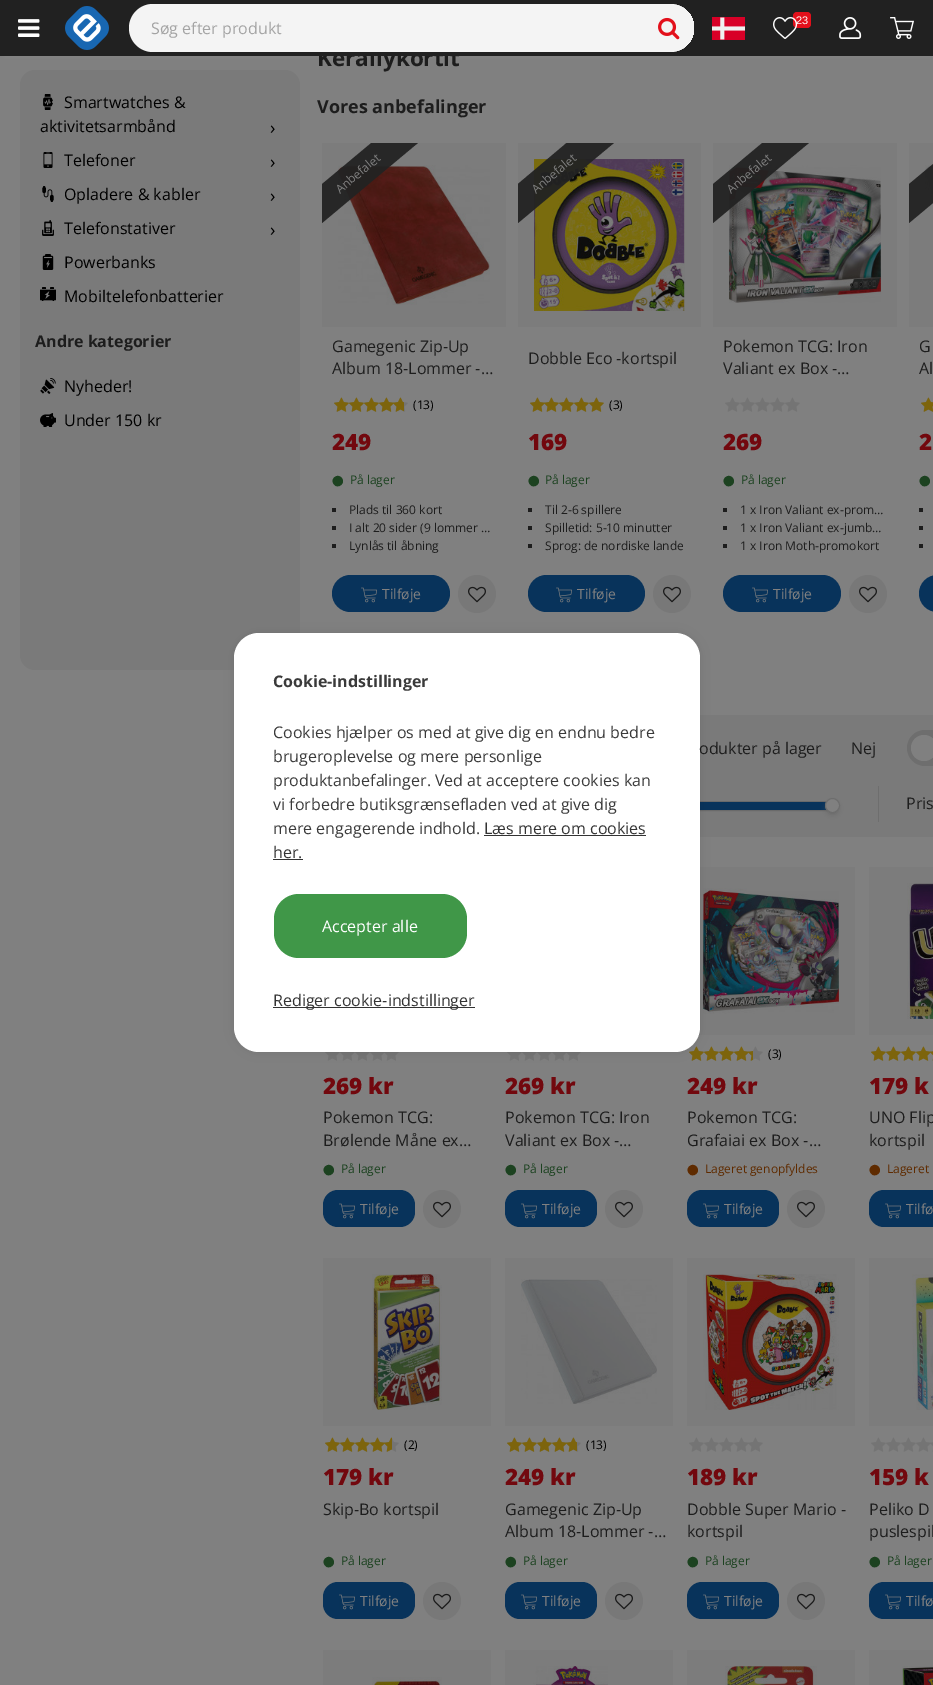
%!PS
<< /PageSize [933 1685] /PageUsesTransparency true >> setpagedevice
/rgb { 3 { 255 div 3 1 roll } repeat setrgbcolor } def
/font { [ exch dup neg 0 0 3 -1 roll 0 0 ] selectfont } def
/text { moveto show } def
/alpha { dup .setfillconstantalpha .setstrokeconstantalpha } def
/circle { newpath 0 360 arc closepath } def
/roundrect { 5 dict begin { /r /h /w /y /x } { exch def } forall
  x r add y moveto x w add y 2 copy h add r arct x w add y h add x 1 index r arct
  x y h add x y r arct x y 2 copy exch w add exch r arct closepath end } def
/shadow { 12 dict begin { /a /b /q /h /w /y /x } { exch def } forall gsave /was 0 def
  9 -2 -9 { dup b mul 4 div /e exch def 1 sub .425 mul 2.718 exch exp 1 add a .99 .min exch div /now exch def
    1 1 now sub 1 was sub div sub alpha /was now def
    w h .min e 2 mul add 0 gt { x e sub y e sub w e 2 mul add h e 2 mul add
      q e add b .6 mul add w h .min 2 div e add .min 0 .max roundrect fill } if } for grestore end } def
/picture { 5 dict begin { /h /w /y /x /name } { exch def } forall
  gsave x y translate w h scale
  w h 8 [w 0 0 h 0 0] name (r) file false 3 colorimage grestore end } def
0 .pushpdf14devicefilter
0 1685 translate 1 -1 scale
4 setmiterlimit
128 128 128 rgb
0 0 933 1685 rectfill
136 136 136 rgb
5 0 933 56 0 2.5 1 shadow
122 122 122 rgb
20 70 280 600 15 roundrect fill
(img_08.rgb) 43 94 10 16 picture
(img_09.rgb) 43 152 10 16 picture
(img_10.rgb) 42 186 12 16 picture
(img_11.rgb) 42 220 12 16 picture
(img_12.rgb) 42 254 12 16 picture
(img_13.rgb) 40 287 16 14 picture
(img_14.rgb) 40 378 16 16 picture
(img_15.rgb) 40 413 16 14 picture
(img_16.rgb) 338 165 152 140 picture
0.03 alpha
0 0 0 rgb
322 143 184 184 rectfill
gsave
322 143 125 110 rectclip
0.95 alpha
34 34 34 rgb
291 210 moveto 115 -96 rlineto 19 23 rlineto -115 96 rlineto closepath fill
grestore
1 alpha
(img_17.rgb) 334 397 15 15 picture
(img_17.rgb) 349 397 15 15 picture
(img_17.rgb) 364 397 15 15 picture
(img_17.rgb) 379 397 15 15 picture
(img_18.rgb) 393 397 15 15 picture
(img_19.rgb) 334 397 15 15 picture
(img_19.rgb) 349 397 15 15 picture
(img_19.rgb) 364 397 15 15 picture
(img_20.rgb) 379 397 15 15 picture
(img_21.rgb) 393 397 11 15 picture
29 29 29 rgb
332 508 4 4 rectfill
332 526 4 4 rectfill
332 544 4 4 rectfill
8 51 91 rgb
332 575 118 37 18.5 roundrect fill
(img_22.rgb) 361 587 16 16 picture
120 120 120 rgb
477 594 19 circle fill
(img_23.rgb) 468 586 18 17 picture
(img_24.rgb) 534 159 151 152 picture
0.03 alpha
0 0 0 rgb
518 143 183 184 rectfill
gsave
518 143 125 110 rectclip
0.95 alpha
34 34 34 rgb
487 210 moveto 114 -96 rlineto 20 23 rlineto -115 96 rlineto closepath fill
grestore
1 alpha
(img_17.rgb) 530 397 15 15 picture
(img_18.rgb) 544 397 15 15 picture
(img_17.rgb) 559 397 15 15 picture
(img_17.rgb) 574 397 15 15 picture
(img_17.rgb) 589 397 15 15 picture
(img_20.rgb) 530 397 15 15 picture
(img_25.rgb) 544 397 15 15 picture
(img_19.rgb) 559 397 15 15 picture
(img_19.rgb) 574 397 15 15 picture
(img_19.rgb) 589 397 15 15 picture
29 29 29 rgb
528 508 4 4 rectfill
528 526 4 4 rectfill
528 544 4 4 rectfill
8 51 91 rgb
528 575 117 37 18.5 roundrect fill
(img_22.rgb) 556 587 16 16 picture
120 120 120 rgb
672 594 19 circle fill
(img_23.rgb) 663 586 18 17 picture
(img_26.rgb) 729 165 152 138 picture
0.03 alpha
0 0 0 rgb
713 143 184 184 rectfill
gsave
713 143 125 110 rectclip
0.95 alpha
34 34 34 rgb
682 210 moveto 115 -96 rlineto 19 23 rlineto -115 96 rlineto closepath fill
grestore
1 alpha
(img_17.rgb) 725 397 15 15 picture
(img_17.rgb) 740 397 15 15 picture
(img_17.rgb) 755 397 15 15 picture
(img_17.rgb) 770 397 15 15 picture
(img_17.rgb) 785 397 15 15 picture
29 29 29 rgb
723 508 4 4 rectfill
723 526 4 4 rectfill
723 544 4 4 rectfill
8 51 91 rgb
723 575 118 37 18.5 roundrect fill
(img_22.rgb) 752 587 16 16 picture
120 120 120 rgb
868 594 19 circle fill
(img_23.rgb) 859 586 18 17 picture
(img_27.rgb) 925 165 8 32 picture
0.03 alpha
0 0 0 rgb
909 143 24 184 rectfill
gsave
909 143 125 110 rectclip
0.95 alpha
34 34 34 rgb
878 210 moveto 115 -96 rlineto 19 23 rlineto -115 96 rlineto closepath fill
grestore
1 alpha
(img_28.rgb) 921 397 12 15 picture
(img_29.rgb) 921 397 12 15 picture
29 29 29 rgb
919 508 4 4 rectfill
919 526 4 4 rectfill
919 544 4 4 rectfill
8 51 91 rgb
919 575 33 37 18.5 roundrect fill
122 122 122 rgb
700 715 233 122 rectfill
110 110 110 rgb
907 730 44 36 18 roundrect fill
128 128 128 rgb
924 748 13 circle fill
106 106 106 rgb
575.5 801.5 260 9 rectstroke
8 51 91 rgb
700 802 135 8 rectfill
94 94 94 rgb
828 804 9 9 4.5 3 1 shadow
128 128 128 rgb
832.5 805.5 7 circle gsave fill grestore
109 109 109 rgb
stroke
110 110 110 rgb
878 786 1 36 rectfill
(img_30.rgb) 325 1052 15 9 picture
(img_30.rgb) 340 1052 15 9 picture
(img_30.rgb) 355 1052 15 9 picture
(img_30.rgb) 370 1052 15 9 picture
(img_31.rgb) 384 1052 15 9 picture
8 51 91 rgb
323 1190 92 37 15 roundrect fill
(img_22.rgb) 339 1203 16 16 picture
120 120 120 rgb
442 1209 19 circle fill
(img_23.rgb) 433 1201 18 17 picture
(img_30.rgb) 507 1052 15 9 picture
(img_30.rgb) 522 1052 15 9 picture
(img_30.rgb) 537 1052 15 9 picture
(img_30.rgb) 552 1052 15 9 picture
(img_31.rgb) 566 1052 15 9 picture
8 51 91 rgb
505 1190 92 37 15 roundrect fill
(img_22.rgb) 521 1203 16 16 picture
120 120 120 rgb
624 1209 19 circle fill
(img_23.rgb) 615 1201 18 17 picture
(img_32.rgb) 703 888 136 126 picture
0.03 alpha
0 0 0 rgb
698 867 157 168 rectfill
1 alpha
(img_17.rgb) 689 1046 15 15 picture
(img_17.rgb) 704 1046 15 15 picture
(img_17.rgb) 719 1046 15 15 picture
(img_17.rgb) 734 1046 15 15 picture
(img_18.rgb) 748 1046 15 15 picture
(img_19.rgb) 689 1046 15 15 picture
(img_19.rgb) 704 1046 15 15 picture
(img_19.rgb) 719 1046 15 15 picture
(img_20.rgb) 734 1046 15 15 picture
(img_33.rgb) 748 1051 5 10 picture
8 51 91 rgb
687 1190 92 37 15 roundrect fill
(img_22.rgb) 703 1203 16 16 picture
120 120 120 rgb
806 1209 19 circle fill
(img_23.rgb) 797 1201 18 17 picture
(img_34.rgb) 907 883 26 136 picture
0.03 alpha
0 0 0 rgb
869 867 64 168 rectfill
1 alpha
(img_17.rgb) 871 1046 15 15 picture
(img_17.rgb) 886 1046 15 15 picture
(img_17.rgb) 901 1046 15 15 picture
(img_17.rgb) 916 1046 15 15 picture
(img_35.rgb) 930 1051 3 10 picture
(img_19.rgb) 871 1046 15 15 picture
(img_19.rgb) 886 1046 15 15 picture
(img_19.rgb) 901 1046 15 15 picture
(img_20.rgb) 916 1046 15 15 picture
(img_36.rgb) 930 1051 3 10 picture
8 51 91 rgb
869 1190 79 37 15 roundrect fill
(img_22.rgb) 885 1203 16 16 picture
(img_37.rgb) 372 1274 70 136 picture
0.03 alpha
0 0 0 rgb
323 1258 168 168 rectfill
1 alpha
(img_17.rgb) 325 1437 15 15 picture
(img_17.rgb) 340 1437 15 15 picture
(img_17.rgb) 355 1437 15 15 picture
(img_17.rgb) 370 1437 15 15 picture
(img_18.rgb) 384 1437 15 15 picture
(img_19.rgb) 325 1437 15 15 picture
(img_19.rgb) 340 1437 15 15 picture
(img_19.rgb) 355 1437 15 15 picture
(img_20.rgb) 370 1437 15 15 picture
(img_38.rgb) 384 1437 8 15 picture
8 51 91 rgb
323 1582 92 37 15 roundrect fill
(img_22.rgb) 339 1594 16 16 picture
120 120 120 rgb
442 1601 19 circle fill
(img_23.rgb) 433 1593 18 17 picture
(img_39.rgb) 521 1279 136 125 picture
0.03 alpha
0 0 0 rgb
505 1258 168 168 rectfill
1 alpha
(img_17.rgb) 507 1437 15 15 picture
(img_17.rgb) 522 1437 15 15 picture
(img_17.rgb) 537 1437 15 15 picture
(img_17.rgb) 552 1437 15 15 picture
(img_18.rgb) 566 1437 15 15 picture
(img_19.rgb) 507 1437 15 15 picture
(img_19.rgb) 522 1437 15 15 picture
(img_19.rgb) 537 1437 15 15 picture
(img_20.rgb) 552 1437 15 15 picture
(img_21.rgb) 566 1437 11 15 picture
8 51 91 rgb
505 1582 92 37 15 roundrect fill
(img_22.rgb) 521 1594 16 16 picture
120 120 120 rgb
624 1601 19 circle fill
(img_23.rgb) 615 1593 18 17 picture
(img_40.rgb) 703 1274 136 136 picture
0.03 alpha
0 0 0 rgb
687 1258 168 168 rectfill
1 alpha
(img_17.rgb) 689 1437 15 15 picture
(img_17.rgb) 704 1437 15 15 picture
(img_17.rgb) 719 1437 15 15 picture
(img_17.rgb) 734 1437 15 15 picture
(img_18.rgb) 748 1437 15 15 picture
8 51 91 rgb
687 1582 92 37 15 roundrect fill
(img_22.rgb) 703 1594 16 16 picture
120 120 120 rgb
806 1601 19 circle fill
(img_23.rgb) 797 1593 18 17 picture
(img_41.rgb) 912 1274 21 136 picture
0.03 alpha
0 0 0 rgb
869 1258 64 168 rectfill
1 alpha
(img_17.rgb) 871 1437 15 15 picture
(img_17.rgb) 886 1437 15 15 picture
(img_17.rgb) 901 1437 15 15 picture
(img_17.rgb) 916 1437 15 15 picture
(img_35.rgb) 930 1442 3 10 picture
8 51 91 rgb
869 1582 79 37 15 roundrect fill
(img_22.rgb) 885 1594 16 16 picture
(img_42.rgb) 372 1677 70 8 picture
0.03 alpha
0 0 0 rgb
323 1650 168 35 rectfill
1 alpha
(img_43.rgb) 533 1666 75 19 picture
0.03 alpha
505 1650 168 35 rectfill
1 alpha
(img_44.rgb) 725 1666 92 19 picture
0.03 alpha
687 1650 168 35 rectfill
1 alpha
(img_45.rgb) 902 1666 31 19 picture
0.03 alpha
869 1650 64 35 rectfill
1 alpha
234 633 466 419 25 5 0.1 shadow
255 255 255 rgb
234 633 466 419 25 roundrect fill
51 51 51 rgb
484 835 162 1 rectfill
273 859 30 1 rectfill
64 151 72 rgb
274 894 193 64 25 roundrect fill
51 51 51 rgb
273 1007 202 1 rectfill
/OpenSans-Regular 16 font
0 0 0 rgb
(Smartwatches &) 64 108 text
(aktivitetsarmbånd) 40 132 text
/OpenSans-Regular 18 font
(›) 270 134 text
/OpenSans-Regular 16 font
(Telefoner) 64 166 text
/OpenSans-Regular 18 font
(›) 270 168 text
/OpenSans-Regular 16 font
(Opladere & kabler) 64 200 text
/OpenSans-Regular 18 font
(›) 270 202 text
/OpenSans-Regular 16 font
(Telefonstativer) 64 234 text
/OpenSans-Regular 18 font
(›) 270 236 text
/OpenSans-Regular 16 font
(Powerbanks) 64 268 text
(Mobiltelefonbatterier) 64 302 text
/OpenSans-Bold 16 font
29 29 29 rgb
(Andre kategorier) 35 347 text
/OpenSans-Regular 16 font
0 0 0 rgb
(Nyheder!) 64 392 text
(Under 150 kr) 64 426 text
/OpenSans-Bold 22.5 font
29 29 29 rgb
(Keräilykortit) 317 66 text
33 33 33 rgb
0 0 933 56 rectfill
gsave
129 4 565 48 24 roundrect clip newpath
244 244 244 rgb
129 4 566 48 24 roundrect fill
grestore
(img_03.rgb) 658 17 22 23 picture
(img_06.rgb) 839 17 23 22 picture
(img_04.rgb) 712 17 33 23 picture
/OpenSans-Regular 16 font
164 164 164 rgb
(Søg efter produkt) 151 34 text
(img_07.rgb) 890 17 24 22 picture
227 16 27 rgb
793 12 18 16 4 roundrect fill
/LiberationSans-Regular 11 font
255 255 255 rgb
(23) 796 24 text
(img_05.rgb) 773 17 25 22 picture
(img_02.rgb) 65 6 44 44 picture
(img_01.rgb) 18 19 22 18 picture
/OpenSans-Bold 18 font
29 29 29 rgb
(Vores anbefalinger) 317 113 text
/OpenSans-Regular 12 font
128 128 128 rgb
gsave 340 194 translate -40 rotate 0 0 moveto (Anbefalet) show grestore
/OpenSans-Regular 16 font
29 29 29 rgb
(Gamegenic Zip-Up) 332 352 text
(Album 18-Lommer -…) 332 374 text
/OpenSans-Regular 12 font
0 0 0 rgb
(\(13\)) 413 409 text
/OpenSans-ExtraBold 22.5 font
114 8 14 rgb
(249) 332 450 text
/LiberationSans-Regular 39 font
28 66 32 rgb
(•) 331 494 text
/NotoSans-Regular 12 font
(P) 350 484 text
/OpenSans-Regular 12 font
(å lager) 357 484 text
29 29 29 rgb
(Plads til 360 kort) 349 514 text
(I alt 20 sider \(9 lommer …) 349 532 text
(Lynlås til åbning) 349 550 text
/OpenSans-Regular 14 font
128 128 128 rgb
(Tilføje) 382 599 text
/OpenSans-Regular 12 font
gsave 536 194 translate -40 rotate 0 0 moveto (Anbefalet) show grestore
/OpenSans-Regular 16 font
29 29 29 rgb
(Dobble Eco -kortspil) 528 364 text
/OpenSans-Regular 12 font
0 0 0 rgb
(\(3\)) 609 409 text
/OpenSans-ExtraBold 22.5 font
114 8 14 rgb
(169) 528 450 text
/LiberationSans-Regular 39 font
28 66 32 rgb
(•) 527 494 text
/NotoSans-Regular 12 font
(P) 545 484 text
/OpenSans-Regular 12 font
(å lager) 552 484 text
29 29 29 rgb
(Til 2-6 spillere) 545 514 text
(Spilletid: 5-10 minutter) 545 532 text
(Sprog: de nordiske lande) 545 550 text
/OpenSans-Regular 14 font
128 128 128 rgb
(Tilføje) 577 599 text
/OpenSans-Regular 12 font
gsave 731 194 translate -40 rotate 0 0 moveto (Anbefalet) show grestore
/OpenSans-Regular 16 font
29 29 29 rgb
(Pokemon TCG: Iron) 723 352 text
(Valiant ex Box -…) 723 374 text
/OpenSans-ExtraBold 22.5 font
114 8 14 rgb
(269) 723 450 text
/LiberationSans-Regular 39 font
28 66 32 rgb
(•) 722 494 text
/NotoSans-Regular 12 font
(P) 741 484 text
/OpenSans-Regular 12 font
(å lager) 748 484 text
29 29 29 rgb
(1 x Iron Valiant ex-prom…) 740 514 text
(1 x Iron Valiant ex-jumb…) 740 532 text
(1 x Iron Moth-promokort) 740 550 text
/OpenSans-Regular 14 font
128 128 128 rgb
(Tilføje) 773 599 text
/OpenSans-Regular 16 font
29 29 29 rgb
(G) 919 352 text
(Al) 919 374 text
/OpenSans-ExtraBold 22.5 font
114 8 14 rgb
(2) 919 450 text
/LiberationSans-Regular 39 font
28 66 32 rgb
(•) 918 494 text
/OpenSans-Regular 16 font
29 29 29 rgb
(odukter på lager) 699 754 text
(Nej) 851 754 text
(Pris) 906 809 text
/OpenSans-ExtraBold 22.5 font
114 8 14 rgb
(269 kr) 323 1094 text
/OpenSans-Regular 16 font
29 29 29 rgb
(Pokemon TCG:) 323 1123 text
(Brølende Måne ex…) 323 1146 text
/LiberationSans-Regular 39 font
28 66 32 rgb
(•) 322 1183 text
/NotoSans-Regular 12 font
(P) 341 1173 text
/OpenSans-Regular 12 font
(å lager) 348 1173 text
/OpenSans-Regular 14 font
128 128 128 rgb
(Tilføje) 360 1214 text
/OpenSans-ExtraBold 22.5 font
114 8 14 rgb
(269 kr) 505 1094 text
/OpenSans-Regular 16 font
29 29 29 rgb
(Pokemon TCG: Iron) 505 1123 text
(Valiant ex Box -…) 505 1146 text
/LiberationSans-Regular 39 font
28 66 32 rgb
(•) 504 1183 text
/NotoSans-Regular 12 font
(P) 523 1173 text
/OpenSans-Regular 12 font
(å lager) 530 1173 text
/OpenSans-Regular 14 font
128 128 128 rgb
(Tilføje) 542 1214 text
/OpenSans-Regular 12 font
0 0 0 rgb
(\(3\)) 768 1058 text
/OpenSans-ExtraBold 22.5 font
114 8 14 rgb
(249 kr) 687 1094 text
/OpenSans-Regular 16 font
29 29 29 rgb
(Pokemon TCG:) 687 1123 text
(Grafaiai ex Box -…) 687 1146 text
/LiberationSans-Regular 39 font
95 43 0 rgb
(•) 686 1183 text
/NotoSans-Regular 12 font
(L) 705 1173 text
/OpenSans-Regular 12 font
(ageret genopfyldes) 711 1173 text
/OpenSans-Regular 14 font
128 128 128 rgb
(Tilføje) 724 1214 text
/OpenSans-ExtraBold 22.5 font
114 8 14 rgb
(179 k) 869 1094 text
/OpenSans-Regular 16 font
29 29 29 rgb
(UNO Flip) 869 1123 text
(kortspil) 869 1146 text
/LiberationSans-Regular 39 font
95 43 0 rgb
(•) 868 1183 text
/NotoSans-Regular 12 font
(L) 887 1173 text
/OpenSans-Regular 12 font
(ageret) 893 1173 text
/OpenSans-Regular 14 font
128 128 128 rgb
(Tilfø) 906 1214 text
/OpenSans-Regular 12 font
0 0 0 rgb
(\(2\)) 404 1449 text
/OpenSans-ExtraBold 22.5 font
114 8 14 rgb
(179 kr) 323 1485 text
/OpenSans-Regular 16 font
29 29 29 rgb
(Skip-Bo kortspil) 323 1515 text
/LiberationSans-Regular 39 font
28 66 32 rgb
(•) 322 1575 text
/NotoSans-Regular 12 font
(P) 341 1565 text
/OpenSans-Regular 12 font
(å lager) 348 1565 text
/OpenSans-Regular 14 font
128 128 128 rgb
(Tilføje) 360 1606 text
/OpenSans-Regular 12 font
0 0 0 rgb
(\(13\)) 586 1449 text
/OpenSans-ExtraBold 22.5 font
114 8 14 rgb
(249 kr) 505 1485 text
/OpenSans-Regular 16 font
29 29 29 rgb
(Gamegenic Zip-Up) 505 1515 text
(Album 18-Lommer -…) 505 1537 text
/LiberationSans-Regular 39 font
28 66 32 rgb
(•) 504 1575 text
/NotoSans-Regular 12 font
(P) 523 1565 text
/OpenSans-Regular 12 font
(å lager) 530 1565 text
/OpenSans-Regular 14 font
128 128 128 rgb
(Tilføje) 542 1606 text
/OpenSans-ExtraBold 22.5 font
114 8 14 rgb
(189 kr) 687 1485 text
/OpenSans-Regular 16 font
29 29 29 rgb
(Dobble Super Mario -) 687 1515 text
(kortspil) 687 1537 text
/LiberationSans-Regular 39 font
28 66 32 rgb
(•) 686 1575 text
/NotoSans-Regular 12 font
(P) 705 1565 text
/OpenSans-Regular 12 font
(å lager) 712 1565 text
/OpenSans-Regular 14 font
128 128 128 rgb
(Tilføje) 724 1606 text
/OpenSans-ExtraBold 22.5 font
114 8 14 rgb
(159 k) 869 1485 text
/OpenSans-Regular 16 font
29 29 29 rgb
(Peliko D) 869 1515 text
(puslespil) 869 1537 text
/LiberationSans-Regular 39 font
28 66 32 rgb
(•) 868 1575 text
/NotoSans-Regular 12 font
(P) 887 1565 text
/OpenSans-Regular 12 font
(å lager) 894 1565 text
/OpenSans-Regular 14 font
128 128 128 rgb
(Tilfø) 906 1606 text
/OpenSans-Bold 16 font
58 58 58 rgb
(Cookie-indstillinger) 273 687 text
/OpenSans-Regular 16 font
(Cookies hjælper os med at give dig en endnu bedre) 273 738 text
(brugeroplevelse og mere personlige) 273 762 text
(produktanbefalinger. Ved at acceptere cookies kan) 273 786 text
(vi forbedre butiksgrænsefladen ved at give dig) 273 810 text
(mere engagerende indhold.) 273 834 text
51 51 51 rgb
(Læs mere om cookies) 484 834 text
(her.) 273 858 text
255 255 255 rgb
(Accepter alle) 322 932 text
51 51 51 rgb
(Rediger cookie-indstillinger) 273 1006 text
.poppdf14devicefilter showpage
